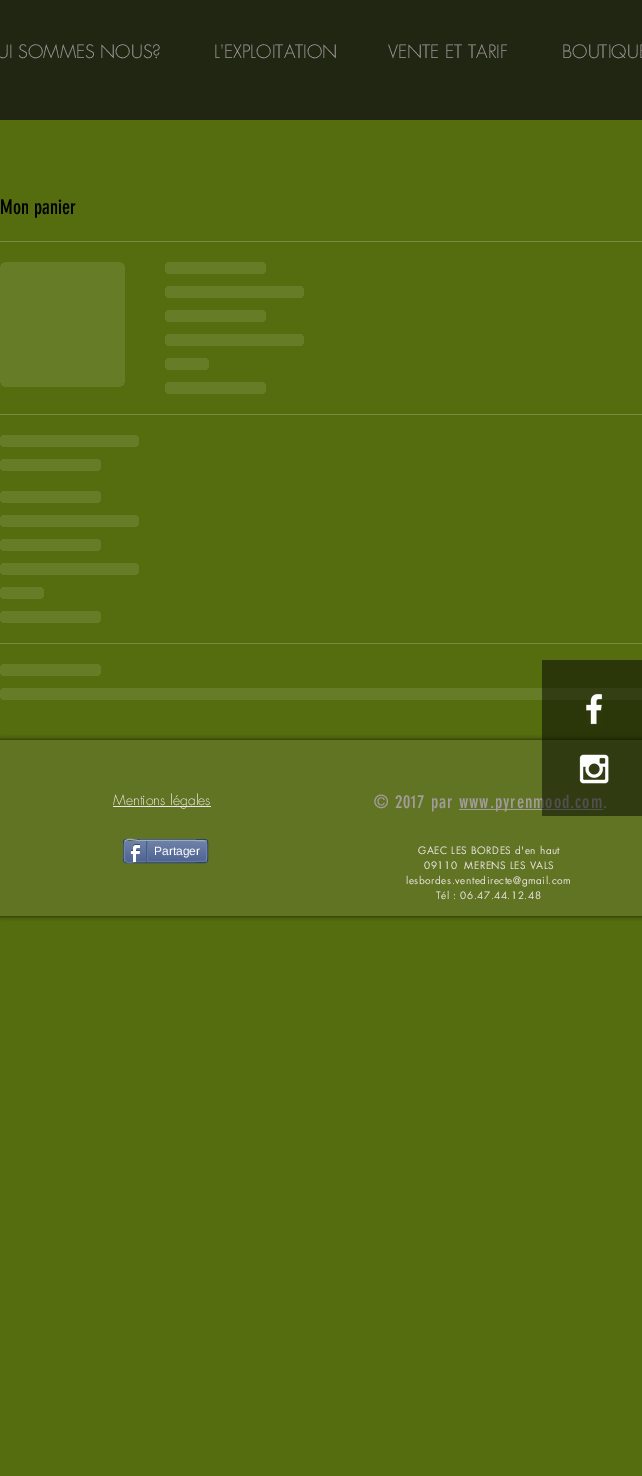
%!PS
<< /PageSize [642 1476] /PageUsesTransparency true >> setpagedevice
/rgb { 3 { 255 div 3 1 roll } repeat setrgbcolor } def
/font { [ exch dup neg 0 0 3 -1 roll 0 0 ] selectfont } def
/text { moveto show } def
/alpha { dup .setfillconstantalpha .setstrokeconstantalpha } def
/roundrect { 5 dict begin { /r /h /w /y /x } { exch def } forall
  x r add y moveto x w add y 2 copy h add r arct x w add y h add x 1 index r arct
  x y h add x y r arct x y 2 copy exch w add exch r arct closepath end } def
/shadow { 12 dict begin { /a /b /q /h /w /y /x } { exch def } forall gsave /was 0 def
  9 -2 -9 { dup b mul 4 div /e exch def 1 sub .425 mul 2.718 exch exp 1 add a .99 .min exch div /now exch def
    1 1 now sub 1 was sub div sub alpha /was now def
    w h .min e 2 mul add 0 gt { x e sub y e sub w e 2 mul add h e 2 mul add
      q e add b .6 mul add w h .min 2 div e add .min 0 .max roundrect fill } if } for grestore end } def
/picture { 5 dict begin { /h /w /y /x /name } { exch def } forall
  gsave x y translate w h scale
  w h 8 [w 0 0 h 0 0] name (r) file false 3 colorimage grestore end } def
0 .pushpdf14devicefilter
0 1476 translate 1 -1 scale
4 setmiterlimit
85 109 14 rgb
0 0 642 1476 rectfill
33 38 19 rgb
0 0 642 120 rectfill
119 138 62 rgb
0 241 642 1 rectfill
gsave 0 262 125 125 8 roundrect clip newpath
<< /ShadingType 2 /ColorSpace /DeviceRGB /Coords [0 325 500 325] /Extend [true true] /Function << /FunctionType 3 /Domain [0 1] /Functions [<< /FunctionType 2 /Domain [0 1] /C0 [0.4 0.486 0.149] /C1 [0.4 0.486 0.149] /N 1 >> << /FunctionType 2 /Domain [0 1] /C0 [0.4 0.486 0.149] /C1 [0.467 0.541 0.243] /N 1 >> << /FunctionType 2 /Domain [0 1] /C0 [0.467 0.541 0.243] /C1 [0.4 0.486 0.149] /N 1 >> << /FunctionType 2 /Domain [0 1] /C0 [0.4 0.486 0.149] /C1 [0.4 0.486 0.149] /N 1 >>] /Bounds [0.25 0.37 0.63] /Encode [0 1 0 1 0 1 0 1] >> >> shfill grestore
gsave 165 262 101 12 6 roundrect clip newpath
<< /ShadingType 2 /ColorSpace /DeviceRGB /Coords [165 268 569 268] /Extend [true true] /Function << /FunctionType 3 /Domain [0 1] /Functions [<< /FunctionType 2 /Domain [0 1] /C0 [0.4 0.486 0.149] /C1 [0.4 0.486 0.149] /N 1 >> << /FunctionType 2 /Domain [0 1] /C0 [0.4 0.486 0.149] /C1 [0.467 0.541 0.243] /N 1 >> << /FunctionType 2 /Domain [0 1] /C0 [0.467 0.541 0.243] /C1 [0.4 0.486 0.149] /N 1 >> << /FunctionType 2 /Domain [0 1] /C0 [0.4 0.486 0.149] /C1 [0.4 0.486 0.149] /N 1 >>] /Bounds [0.25 0.37 0.63] /Encode [0 1 0 1 0 1 0 1] >> >> shfill grestore
gsave 165 286 139 12 6 roundrect clip newpath
<< /ShadingType 2 /ColorSpace /DeviceRGB /Coords [165 292 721 292] /Extend [true true] /Function << /FunctionType 3 /Domain [0 1] /Functions [<< /FunctionType 2 /Domain [0 1] /C0 [0.4 0.486 0.149] /C1 [0.4 0.486 0.149] /N 1 >> << /FunctionType 2 /Domain [0 1] /C0 [0.4 0.486 0.149] /C1 [0.467 0.541 0.243] /N 1 >> << /FunctionType 2 /Domain [0 1] /C0 [0.467 0.541 0.243] /C1 [0.4 0.486 0.149] /N 1 >> << /FunctionType 2 /Domain [0 1] /C0 [0.4 0.486 0.149] /C1 [0.4 0.486 0.149] /N 1 >>] /Bounds [0.25 0.37 0.63] /Encode [0 1 0 1 0 1 0 1] >> >> shfill grestore
gsave 165 310 101 12 6 roundrect clip newpath
<< /ShadingType 2 /ColorSpace /DeviceRGB /Coords [165 316 569 316] /Extend [true true] /Function << /FunctionType 3 /Domain [0 1] /Functions [<< /FunctionType 2 /Domain [0 1] /C0 [0.4 0.486 0.149] /C1 [0.4 0.486 0.149] /N 1 >> << /FunctionType 2 /Domain [0 1] /C0 [0.4 0.486 0.149] /C1 [0.467 0.541 0.243] /N 1 >> << /FunctionType 2 /Domain [0 1] /C0 [0.467 0.541 0.243] /C1 [0.4 0.486 0.149] /N 1 >> << /FunctionType 2 /Domain [0 1] /C0 [0.4 0.486 0.149] /C1 [0.4 0.486 0.149] /N 1 >>] /Bounds [0.25 0.37 0.63] /Encode [0 1 0 1 0 1 0 1] >> >> shfill grestore
gsave 165 334 139 12 6 roundrect clip newpath
<< /ShadingType 2 /ColorSpace /DeviceRGB /Coords [165 340 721 340] /Extend [true true] /Function << /FunctionType 3 /Domain [0 1] /Functions [<< /FunctionType 2 /Domain [0 1] /C0 [0.4 0.486 0.149] /C1 [0.4 0.486 0.149] /N 1 >> << /FunctionType 2 /Domain [0 1] /C0 [0.4 0.486 0.149] /C1 [0.467 0.541 0.243] /N 1 >> << /FunctionType 2 /Domain [0 1] /C0 [0.467 0.541 0.243] /C1 [0.4 0.486 0.149] /N 1 >> << /FunctionType 2 /Domain [0 1] /C0 [0.4 0.486 0.149] /C1 [0.4 0.486 0.149] /N 1 >>] /Bounds [0.25 0.37 0.63] /Encode [0 1 0 1 0 1 0 1] >> >> shfill grestore
gsave 165 358 44 12 6 roundrect clip newpath
<< /ShadingType 2 /ColorSpace /DeviceRGB /Coords [165 364 341 364] /Extend [true true] /Function << /FunctionType 3 /Domain [0 1] /Functions [<< /FunctionType 2 /Domain [0 1] /C0 [0.4 0.486 0.149] /C1 [0.4 0.486 0.149] /N 1 >> << /FunctionType 2 /Domain [0 1] /C0 [0.4 0.486 0.149] /C1 [0.467 0.541 0.243] /N 1 >> << /FunctionType 2 /Domain [0 1] /C0 [0.467 0.541 0.243] /C1 [0.4 0.486 0.149] /N 1 >> << /FunctionType 2 /Domain [0 1] /C0 [0.4 0.486 0.149] /C1 [0.4 0.486 0.149] /N 1 >>] /Bounds [0.25 0.37 0.63] /Encode [0 1 0 1 0 1 0 1] >> >> shfill grestore
gsave 165 382 101 12 6 roundrect clip newpath
<< /ShadingType 2 /ColorSpace /DeviceRGB /Coords [165 388 569 388] /Extend [true true] /Function << /FunctionType 3 /Domain [0 1] /Functions [<< /FunctionType 2 /Domain [0 1] /C0 [0.4 0.486 0.149] /C1 [0.4 0.486 0.149] /N 1 >> << /FunctionType 2 /Domain [0 1] /C0 [0.4 0.486 0.149] /C1 [0.467 0.541 0.243] /N 1 >> << /FunctionType 2 /Domain [0 1] /C0 [0.467 0.541 0.243] /C1 [0.4 0.486 0.149] /N 1 >> << /FunctionType 2 /Domain [0 1] /C0 [0.4 0.486 0.149] /C1 [0.4 0.486 0.149] /N 1 >>] /Bounds [0.25 0.37 0.63] /Encode [0 1 0 1 0 1 0 1] >> >> shfill grestore
0 414 642 1 rectfill
gsave 0 435 139 12 6 roundrect clip newpath
<< /ShadingType 2 /ColorSpace /DeviceRGB /Coords [0 441 556 441] /Extend [true true] /Function << /FunctionType 3 /Domain [0 1] /Functions [<< /FunctionType 2 /Domain [0 1] /C0 [0.4 0.486 0.149] /C1 [0.4 0.486 0.149] /N 1 >> << /FunctionType 2 /Domain [0 1] /C0 [0.4 0.486 0.149] /C1 [0.467 0.541 0.243] /N 1 >> << /FunctionType 2 /Domain [0 1] /C0 [0.467 0.541 0.243] /C1 [0.4 0.486 0.149] /N 1 >> << /FunctionType 2 /Domain [0 1] /C0 [0.4 0.486 0.149] /C1 [0.4 0.486 0.149] /N 1 >>] /Bounds [0.25 0.37 0.63] /Encode [0 1 0 1 0 1 0 1] >> >> shfill grestore
gsave 0 459 101 12 6 roundrect clip newpath
<< /ShadingType 2 /ColorSpace /DeviceRGB /Coords [0 465 404 465] /Extend [true true] /Function << /FunctionType 3 /Domain [0 1] /Functions [<< /FunctionType 2 /Domain [0 1] /C0 [0.4 0.486 0.149] /C1 [0.4 0.486 0.149] /N 1 >> << /FunctionType 2 /Domain [0 1] /C0 [0.4 0.486 0.149] /C1 [0.467 0.541 0.243] /N 1 >> << /FunctionType 2 /Domain [0 1] /C0 [0.467 0.541 0.243] /C1 [0.4 0.486 0.149] /N 1 >> << /FunctionType 2 /Domain [0 1] /C0 [0.4 0.486 0.149] /C1 [0.4 0.486 0.149] /N 1 >>] /Bounds [0.25 0.37 0.63] /Encode [0 1 0 1 0 1 0 1] >> >> shfill grestore
gsave 0 491 101 12 6 roundrect clip newpath
<< /ShadingType 2 /ColorSpace /DeviceRGB /Coords [0 497 404 497] /Extend [true true] /Function << /FunctionType 3 /Domain [0 1] /Functions [<< /FunctionType 2 /Domain [0 1] /C0 [0.4 0.486 0.149] /C1 [0.4 0.486 0.149] /N 1 >> << /FunctionType 2 /Domain [0 1] /C0 [0.4 0.486 0.149] /C1 [0.467 0.541 0.243] /N 1 >> << /FunctionType 2 /Domain [0 1] /C0 [0.467 0.541 0.243] /C1 [0.4 0.486 0.149] /N 1 >> << /FunctionType 2 /Domain [0 1] /C0 [0.4 0.486 0.149] /C1 [0.4 0.486 0.149] /N 1 >>] /Bounds [0.25 0.37 0.63] /Encode [0 1 0 1 0 1 0 1] >> >> shfill grestore
gsave 0 515 139 12 6 roundrect clip newpath
<< /ShadingType 2 /ColorSpace /DeviceRGB /Coords [0 521 556 521] /Extend [true true] /Function << /FunctionType 3 /Domain [0 1] /Functions [<< /FunctionType 2 /Domain [0 1] /C0 [0.4 0.486 0.149] /C1 [0.4 0.486 0.149] /N 1 >> << /FunctionType 2 /Domain [0 1] /C0 [0.4 0.486 0.149] /C1 [0.467 0.541 0.243] /N 1 >> << /FunctionType 2 /Domain [0 1] /C0 [0.467 0.541 0.243] /C1 [0.4 0.486 0.149] /N 1 >> << /FunctionType 2 /Domain [0 1] /C0 [0.4 0.486 0.149] /C1 [0.4 0.486 0.149] /N 1 >>] /Bounds [0.25 0.37 0.63] /Encode [0 1 0 1 0 1 0 1] >> >> shfill grestore
gsave 0 539 101 12 6 roundrect clip newpath
<< /ShadingType 2 /ColorSpace /DeviceRGB /Coords [0 545 404 545] /Extend [true true] /Function << /FunctionType 3 /Domain [0 1] /Functions [<< /FunctionType 2 /Domain [0 1] /C0 [0.4 0.486 0.149] /C1 [0.4 0.486 0.149] /N 1 >> << /FunctionType 2 /Domain [0 1] /C0 [0.4 0.486 0.149] /C1 [0.467 0.541 0.243] /N 1 >> << /FunctionType 2 /Domain [0 1] /C0 [0.467 0.541 0.243] /C1 [0.4 0.486 0.149] /N 1 >> << /FunctionType 2 /Domain [0 1] /C0 [0.4 0.486 0.149] /C1 [0.4 0.486 0.149] /N 1 >>] /Bounds [0.25 0.37 0.63] /Encode [0 1 0 1 0 1 0 1] >> >> shfill grestore
gsave 0 563 139 12 6 roundrect clip newpath
<< /ShadingType 2 /ColorSpace /DeviceRGB /Coords [0 569 556 569] /Extend [true true] /Function << /FunctionType 3 /Domain [0 1] /Functions [<< /FunctionType 2 /Domain [0 1] /C0 [0.4 0.486 0.149] /C1 [0.4 0.486 0.149] /N 1 >> << /FunctionType 2 /Domain [0 1] /C0 [0.4 0.486 0.149] /C1 [0.467 0.541 0.243] /N 1 >> << /FunctionType 2 /Domain [0 1] /C0 [0.467 0.541 0.243] /C1 [0.4 0.486 0.149] /N 1 >> << /FunctionType 2 /Domain [0 1] /C0 [0.4 0.486 0.149] /C1 [0.4 0.486 0.149] /N 1 >>] /Bounds [0.25 0.37 0.63] /Encode [0 1 0 1 0 1 0 1] >> >> shfill grestore
gsave 0 587 44 12 6 roundrect clip newpath
<< /ShadingType 2 /ColorSpace /DeviceRGB /Coords [0 593 176 593] /Extend [true true] /Function << /FunctionType 3 /Domain [0 1] /Functions [<< /FunctionType 2 /Domain [0 1] /C0 [0.4 0.486 0.149] /C1 [0.4 0.486 0.149] /N 1 >> << /FunctionType 2 /Domain [0 1] /C0 [0.4 0.486 0.149] /C1 [0.467 0.541 0.243] /N 1 >> << /FunctionType 2 /Domain [0 1] /C0 [0.467 0.541 0.243] /C1 [0.4 0.486 0.149] /N 1 >> << /FunctionType 2 /Domain [0 1] /C0 [0.4 0.486 0.149] /C1 [0.4 0.486 0.149] /N 1 >>] /Bounds [0.25 0.37 0.63] /Encode [0 1 0 1 0 1 0 1] >> >> shfill grestore
gsave 0 611 101 12 6 roundrect clip newpath
<< /ShadingType 2 /ColorSpace /DeviceRGB /Coords [0 617 404 617] /Extend [true true] /Function << /FunctionType 3 /Domain [0 1] /Functions [<< /FunctionType 2 /Domain [0 1] /C0 [0.4 0.486 0.149] /C1 [0.4 0.486 0.149] /N 1 >> << /FunctionType 2 /Domain [0 1] /C0 [0.4 0.486 0.149] /C1 [0.467 0.541 0.243] /N 1 >> << /FunctionType 2 /Domain [0 1] /C0 [0.467 0.541 0.243] /C1 [0.4 0.486 0.149] /N 1 >> << /FunctionType 2 /Domain [0 1] /C0 [0.4 0.486 0.149] /C1 [0.4 0.486 0.149] /N 1 >>] /Bounds [0.25 0.37 0.63] /Encode [0 1 0 1 0 1 0 1] >> >> shfill grestore
0 643 642 1 rectfill
gsave 0 664 101 12 6 roundrect clip newpath
<< /ShadingType 2 /ColorSpace /DeviceRGB /Coords [0 670 404 670] /Extend [true true] /Function << /FunctionType 3 /Domain [0 1] /Functions [<< /FunctionType 2 /Domain [0 1] /C0 [0.4 0.486 0.149] /C1 [0.4 0.486 0.149] /N 1 >> << /FunctionType 2 /Domain [0 1] /C0 [0.4 0.486 0.149] /C1 [0.467 0.541 0.243] /N 1 >> << /FunctionType 2 /Domain [0 1] /C0 [0.467 0.541 0.243] /C1 [0.4 0.486 0.149] /N 1 >> << /FunctionType 2 /Domain [0 1] /C0 [0.4 0.486 0.149] /C1 [0.4 0.486 0.149] /N 1 >>] /Bounds [0.25 0.37 0.63] /Encode [0 1 0 1 0 1 0 1] >> >> shfill grestore
gsave 0 688 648 12 6 roundrect clip newpath
<< /ShadingType 2 /ColorSpace /DeviceRGB /Coords [0 694 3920 694] /Extend [true true] /Function << /FunctionType 3 /Domain [0 1] /Functions [<< /FunctionType 2 /Domain [0 1] /C0 [0.4 0.486 0.149] /C1 [0.4 0.486 0.149] /N 1 >> << /FunctionType 2 /Domain [0 1] /C0 [0.4 0.486 0.149] /C1 [0.467 0.541 0.243] /N 1 >> << /FunctionType 2 /Domain [0 1] /C0 [0.467 0.541 0.243] /C1 [0.4 0.486 0.149] /N 1 >> << /FunctionType 2 /Domain [0 1] /C0 [0.4 0.486 0.149] /C1 [0.4 0.486 0.149] /N 1 >>] /Bounds [0.25 0.37 0.63] /Encode [0 1 0 1 0 1 0 1] >> >> shfill grestore
0 0 0 rgb
0 740 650 176 0 2.5 0.7 shadow
97 116 35 rgb
0 740 642 176 rectfill
238 230 230 rgb
113 806 98 1 rectfill
162 156 156 rgb
459 809 144 1 rectfill
45 69 101 rgb
123.5 839.5 84 23 2.5 roundrect stroke
(img_03.rgb) 124 841 83 21 picture
154 171 198 rgb
125 841 moveto 3.5 -3.5 9.5 -0.5 14 -0.5 rcurveto 7 0 66 -0.5 67 0.5 rcurveto stroke
111 131 173 rgb
206 841 moveto 1 0.5 1 19.5 0 20 rcurveto stroke
97 118 163 rgb
206 861 moveto -1 1 -60 0.5 -67 0.5 rcurveto -4.5 0 -10.5 3 -14 -0.5 rcurveto stroke
111 131 173 rgb
125 861 moveto -1 -0.5 -1 -19.5 0 -20 rcurveto stroke
(img_04.rgb) 130 844 10 18 picture
66 94 133 rgb
146 841 1 21 rectfill
97 118 163 rgb
147 841 1 20 rectfill
/futura-Light 18 font
162 156 156 rgb
(UI SOMMES NOUS?) -3 58 text
(L'EXPLOITATION) 214 58 text
(VENTE ET TARIF) 388 58 text
(BOUTIQUE) 562 58 text
/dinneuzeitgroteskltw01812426-Regular 20 font
2 2 2 rgb
(Mon panier) 0 214 text
/futura-Light 14 font
238 230 230 rgb
(Mentions légales) 113 805 text
/dinneuzeitgroteskltw01812426-Regular 18 font
162 156 156 rgb
374 808 moveto 0.9 0 (© 2017 par) ashow
459 808 moveto 0.9 0 (www.pyrenmood.com.) ashow
0.5 alpha
2 2 2 rgb
542 660 100 156 rectfill
1 alpha
(img_02.rgb) 579 754 30 30 picture
(img_01.rgb) 586 693 17 32 picture
/LiberationSans-Regular 12 font
255 255 255 rgb
(Partager) 154 855 text
/futura-Regular 10 font
238 230 230 rgb
418 854 moveto 0.5 0 (GAEC LES BORDES d'en haut) ashow
424 869 moveto 0.5 0 (09110  MERENS LES VALS) ashow
406 884 moveto 0.5 0 (lesbordes.ventedirecte@gmail.com) ashow
436 899 moveto 0.5 0 (Tél : 06.47.44.12.48) ashow
.poppdf14devicefilter showpage
